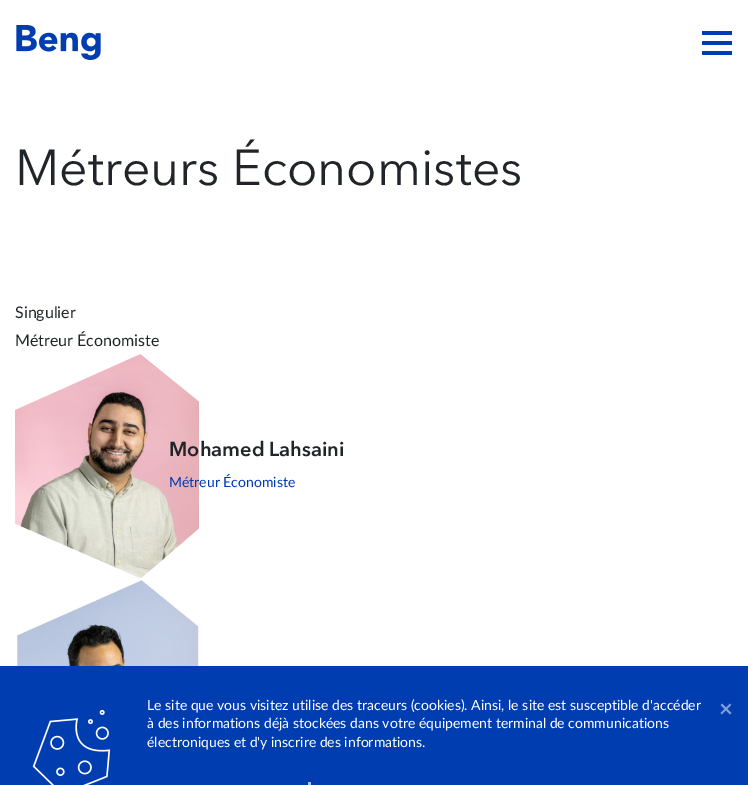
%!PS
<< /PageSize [748 785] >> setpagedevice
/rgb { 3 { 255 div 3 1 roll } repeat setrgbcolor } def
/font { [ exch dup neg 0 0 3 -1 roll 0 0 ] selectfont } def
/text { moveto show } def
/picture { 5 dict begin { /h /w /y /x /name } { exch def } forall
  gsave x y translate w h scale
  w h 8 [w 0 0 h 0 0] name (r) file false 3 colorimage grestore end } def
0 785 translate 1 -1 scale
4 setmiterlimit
255 255 255 rgb
0 0 748 785 rectfill
(img_01.rgb) 16 25 85 35 picture
0 61 177 rgb
702 41 30 4 rectfill
702 31 30 4 rectfill
702 51 30 4 rectfill
(img_02.rgb) 15 354 184 224 picture
(img_03.rgb) 17 580 182 86 picture
0 666 748 119 rectfill
(img_04.rgb) 32 709 79 76 picture
176 195 231 rgb
308 782 3 3 rectfill
/AvenirNext-Regular 50 font
33 37 41 rgb
(Métreurs Économistes) 15 185 text
/Lato-Regular 16 font
(Singulier) 15 318 text
(Métreur Économiste) 15 346 text
/AvenirNext-SemiBold 20 font
(Mohamed Lahsaini) 169 456 text
/Lato-Regular 14 font
0 61 177 rgb
(Métreur Économiste) 169 487 text
255 255 255 rgb
(Le site que vous visitez utilise des traceurs \(cookies\). Ainsi, le site est susceptible d'accéder) 147 710 text
(à des informations déjà stockées dans votre équipement terminal de communications) 147 728 text
(électroniques et d'y inscrire des informations.) 147 747 text
/Lato-Bold 24 font
128 158 216 rgb
(×) 719 717 text
showpage
